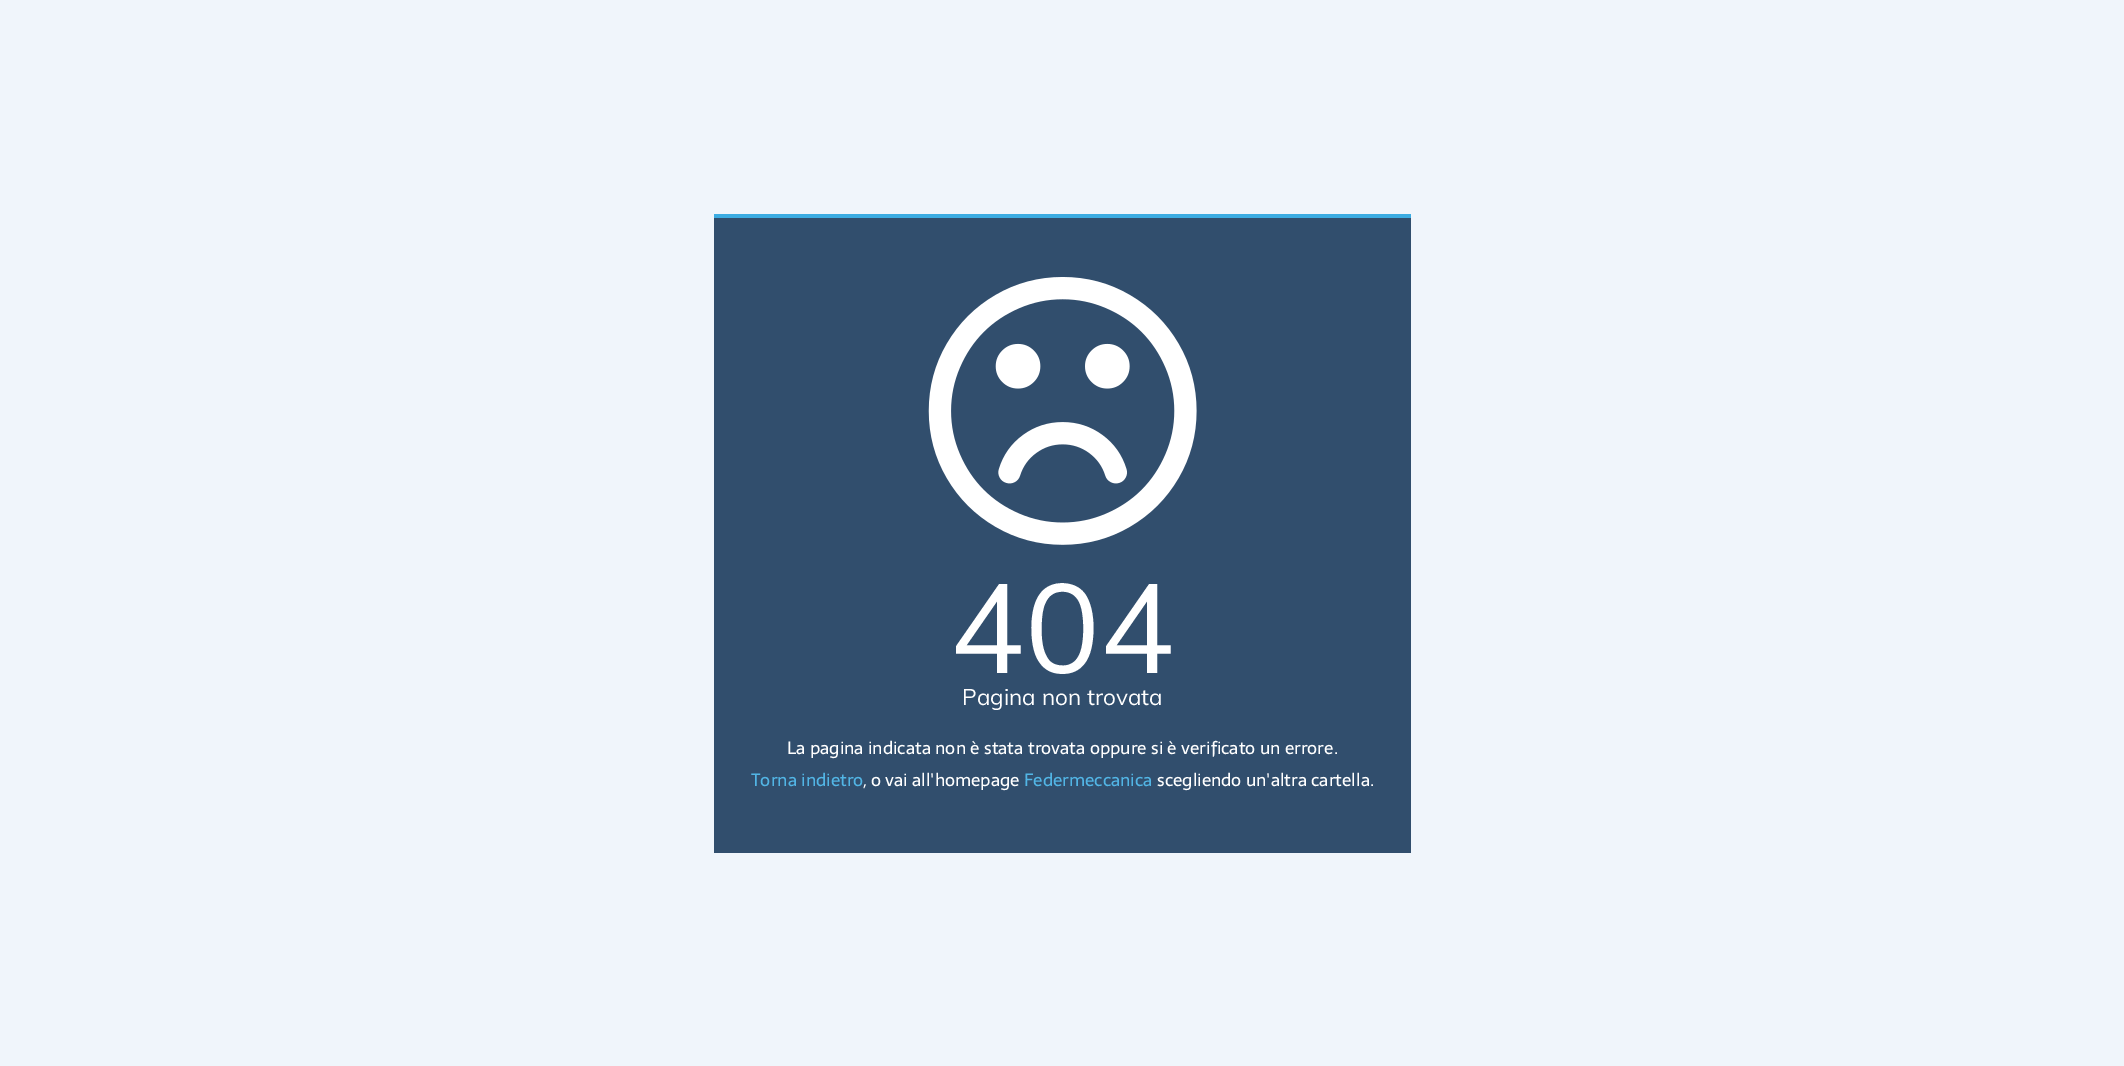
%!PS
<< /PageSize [2124 1066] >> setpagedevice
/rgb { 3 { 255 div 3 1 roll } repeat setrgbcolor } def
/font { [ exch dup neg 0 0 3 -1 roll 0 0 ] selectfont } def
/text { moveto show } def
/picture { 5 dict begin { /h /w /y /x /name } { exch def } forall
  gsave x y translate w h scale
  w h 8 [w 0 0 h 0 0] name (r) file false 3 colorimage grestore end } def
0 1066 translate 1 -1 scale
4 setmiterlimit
240 245 251 rgb
0 0 2124 1066 rectfill
49 78 109 rgb
714 218 697 635 rectfill
60 172 226 rgb
714 214 697 4 rectfill
(img_01.rgb) 928 277 269 268 picture
/Muli-Regular 125 font
255 255 255 rgb
(404) 950 673 text
/Muli-Regular 22.5 font
(Pagina non trovata) 962 705 text
/Sarala-Regular 17.5 font
(La pagina indicata non è stata trovata oppure si è verificato un errore.) 787 754 text
82 181 229 rgb
(Torna indietro) 751 786 text
255 255 255 rgb
(, o vai all'homepage) 863 786 text
82 181 229 rgb
(Federmeccanica) 1024 786 text
255 255 255 rgb
(scegliendo un'altra cartella.) 1157 786 text
showpage
